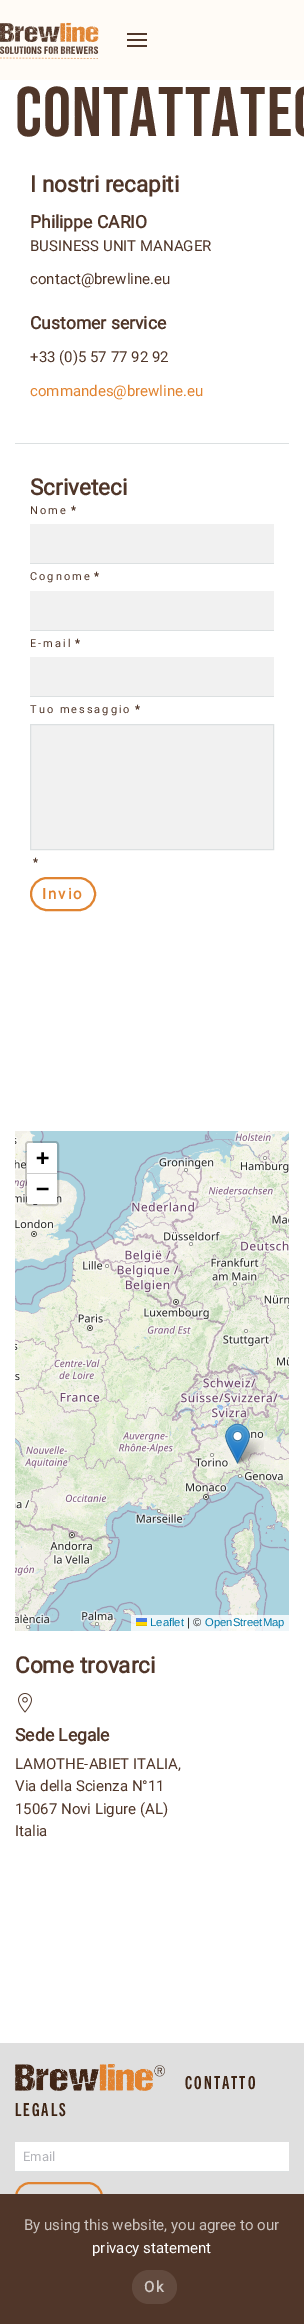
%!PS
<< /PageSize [304 2324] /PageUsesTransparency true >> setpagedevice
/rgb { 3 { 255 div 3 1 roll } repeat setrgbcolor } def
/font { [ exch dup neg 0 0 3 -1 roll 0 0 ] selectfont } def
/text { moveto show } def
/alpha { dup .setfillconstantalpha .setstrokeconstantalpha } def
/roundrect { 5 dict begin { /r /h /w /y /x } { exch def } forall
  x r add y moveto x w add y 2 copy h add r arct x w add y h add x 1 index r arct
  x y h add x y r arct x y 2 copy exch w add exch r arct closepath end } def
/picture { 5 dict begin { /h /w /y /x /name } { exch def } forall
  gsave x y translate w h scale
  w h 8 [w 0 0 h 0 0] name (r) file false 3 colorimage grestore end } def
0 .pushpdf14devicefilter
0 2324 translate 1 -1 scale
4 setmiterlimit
255 255 255 rgb
0 0 304 2324 rectfill
255 251 246 rgb
0 0 304 80 rectfill
(img_01.rgb) 0 22 99 37 picture
80 54 41 rgb
127 33 20 2 rectfill
127 39 20 2 rectfill
127 45 20 2 rectfill
220 224 225 rgb
15 443 274 1 rectfill
241 241 241 rgb
30 524 244 39 rectfill
220 224 225 rgb
30 563 244 1 rectfill
241 241 241 rgb
30 591 244 39 rectfill
220 224 225 rgb
30 630 244 1 rectfill
241 241 241 rgb
30 657 244 39 rectfill
220 224 225 rgb
30 696 244 1 rectfill
241 241 241 rgb
30.5 724.5 moveto 243 0 rlineto 0 125 rlineto -243 0 rlineto closepath gsave fill grestore
220 224 225 rgb
stroke
224 132 49 rgb
2 setlinewidth
31 878 64 32 16 roundrect stroke
(img_02.rgb) 15 1131 22 195 picture
(img_03.rgb) 37 1131 252 195 picture
(img_04.rgb) 15 1326 22 256 picture
(img_05.rgb) 37 1326 252 256 picture
(img_06.rgb) 15 1582 22 49 picture
(img_07.rgb) 37 1582 252 49 picture
(img_09.rgb) 235 1436 29 28 picture
(img_08.rgb) 225 1423 25 41 picture
0.2 alpha
0 0 0 rgb
26 1142 32 63 3 roundrect stroke
1 alpha
255 255 255 rgb
29 1143 moveto 26 0 rlineto 1 0 2 1 2 2 rcurveto 0 29 rlineto -30 0 rlineto 0 -29 rlineto 0 -1 1 -2 2 -2 rcurveto closepath fill
204 204 204 rgb
27 1173 30 1 rectfill
255 255 255 rgb
27 1174 moveto 30 0 rlineto 0 28 rlineto 0 1 -1 2 -2 2 rcurveto -26 0 rlineto -1 0 -2 -1 -2 -2 rcurveto closepath fill
0.8 alpha
131 1615 158 16 rectfill
1 alpha
76 123 225 rgb
136 1618 11 4 rectfill
255 213 0 rgb
136 1622 11 3 rectfill
224 188 0 rgb
136 1625 11 1 rectfill
(img_10.rgb) 18 1693 14 20 picture
223 223 223 rgb
0 2043 304 151 rectfill
(img_11.rgb) 15 2064 150 27 picture
255 255 255 rgb
15 2142 274 29 rectfill
220 224 225 rgb
15 2171 274 1 rectfill
224 132 49 rgb
16 2183 86 28 14 roundrect stroke
80 54 41 rgb
0 2194 304 130 rectfill
98 74 62 rgb
132 2270 45 34 17 roundrect fill
/BebasNeue-Regular 70 font
80 54 41 rgb
15 136 moveto 1 0 (Contattatec) ashow
/Roboto-Bold 22.5 font
(I nostri recapiti) 30 192 text
/Roboto-Bold 17.5 font
(Philippe CARIO) 30 228 text
/Roboto-Regular 15 font
(BUSINESS UNIT MANAGER) 30 251 text
(contact@brewline.eu) 30 284 text
/Roboto-Bold 17.5 font
(Customer service) 30 329 text
/Roboto-Regular 15 font
(+33 \(0\)5 57 77 92 92) 30 362 text
225 131 48 rgb
(commandes@brewline.eu) 30 396 text
/Roboto-Bold 22.5 font
80 54 41 rgb
(Scriveteci) 30 495 text
/Roboto-Regular 11 font
30 514 moveto 2 0 (Nome) ashow
/Roboto-Bold 11 font
71 514 moveto 2 0 (*) ashow
/Roboto-Regular 11 font
30 580 moveto 2 0 (Cognome) ashow
/Roboto-Bold 11 font
94 580 moveto 2 0 (*) ashow
/Roboto-Regular 11 font
30 647 moveto 2 0 (E-mail) ashow
/Roboto-Bold 11 font
75 647 moveto 2 0 (*) ashow
/Roboto-Regular 11 font
30 713 moveto 2 0 (Tuo messaggio) ashow
/Roboto-Bold 11 font
135 713 moveto 2 0 (*) ashow
33 866 moveto 2 0 (*) ashow
/Roboto-Bold 15 font
225 131 48 rgb
42 899 moveto 2 0 (Invio) ashow
/DejaVuSansMono-Bold 22 font
0 0 0 rgb
(+) 36 1165 text
(−) 36 1196 text
/LiberationSans-Regular 11.25 font
0 120 168 rgb
(Leaflet) 150 1626 text
51 51 51 rgb
(| ©) 187 1626 text
0 120 168 rgb
(OpenStreetMap) 205 1626 text
/Roboto-Bold 22.5 font
80 54 41 rgb
(Come trovarci) 15 1673 text
/Roboto-Bold 17.5 font
(Sede Legale) 15 1741 text
/Roboto-Regular 15 font
(LAMOTHE-ABIET ITALIA,) 15 1769 text
(Via della Scienza N°11) 15 1791 text
(15067 Novi Ligure \(AL\)) 15 1814 text
(Italia) 15 1836 text
/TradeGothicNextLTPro-Bold 18 font
62 36 20 rgb
185 2089 moveto 2 0 (CONTATTO) ashow
15 2116 moveto 2 0 (LEGALS) ashow
/Roboto-Regular 13 font
180 181 186 rgb
(Email) 23 2161 text
/Roboto-Regular 15 font
203 195 191 rgb
(By using this website, you agree to our) 24 2230 text
255 255 255 rgb
(privacy statement) 92 2253 text
/Roboto-Bold 15 font
208 201 197 rgb
144 2292 moveto 2 0 (Ok) ashow
.poppdf14devicefilter showpage
